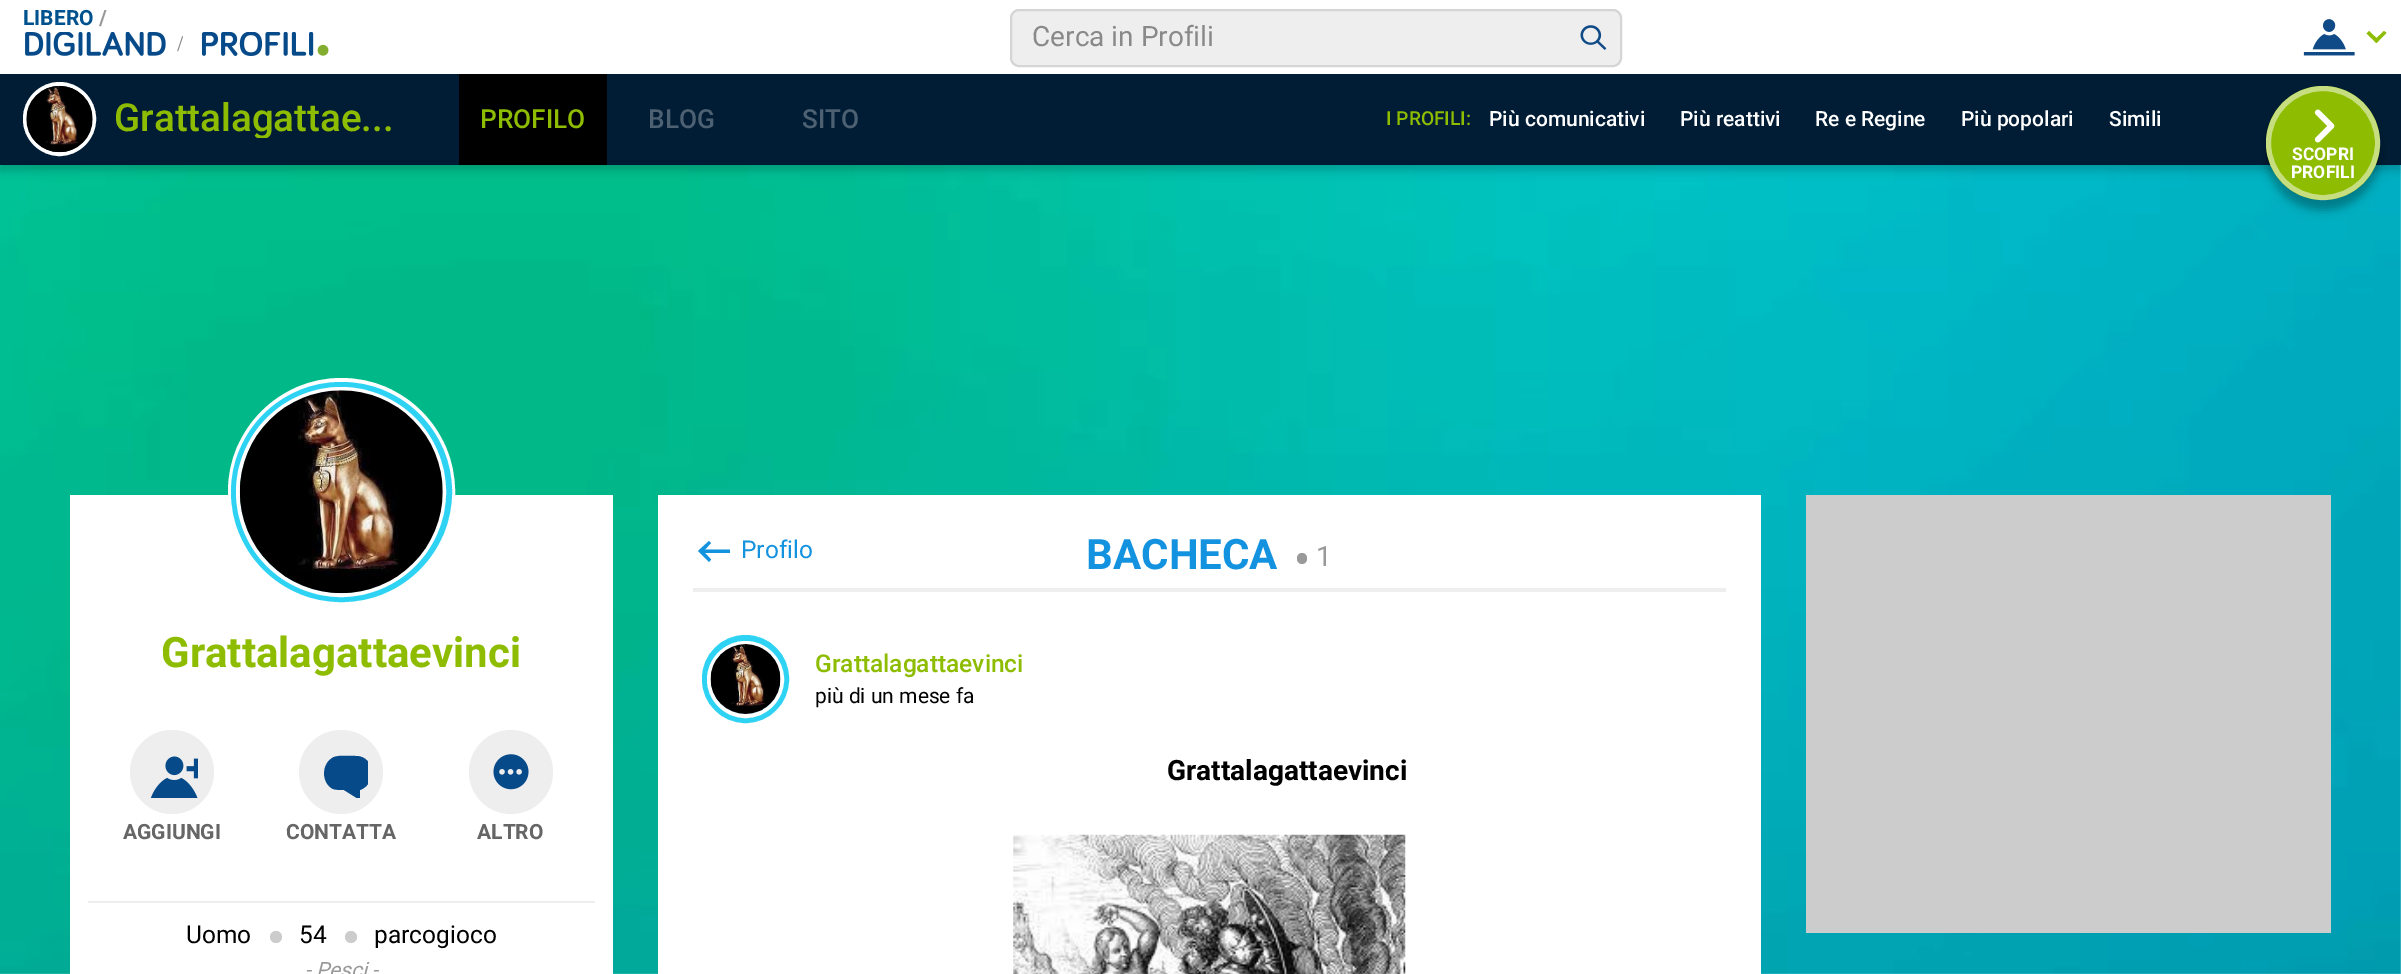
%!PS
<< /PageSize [2401 974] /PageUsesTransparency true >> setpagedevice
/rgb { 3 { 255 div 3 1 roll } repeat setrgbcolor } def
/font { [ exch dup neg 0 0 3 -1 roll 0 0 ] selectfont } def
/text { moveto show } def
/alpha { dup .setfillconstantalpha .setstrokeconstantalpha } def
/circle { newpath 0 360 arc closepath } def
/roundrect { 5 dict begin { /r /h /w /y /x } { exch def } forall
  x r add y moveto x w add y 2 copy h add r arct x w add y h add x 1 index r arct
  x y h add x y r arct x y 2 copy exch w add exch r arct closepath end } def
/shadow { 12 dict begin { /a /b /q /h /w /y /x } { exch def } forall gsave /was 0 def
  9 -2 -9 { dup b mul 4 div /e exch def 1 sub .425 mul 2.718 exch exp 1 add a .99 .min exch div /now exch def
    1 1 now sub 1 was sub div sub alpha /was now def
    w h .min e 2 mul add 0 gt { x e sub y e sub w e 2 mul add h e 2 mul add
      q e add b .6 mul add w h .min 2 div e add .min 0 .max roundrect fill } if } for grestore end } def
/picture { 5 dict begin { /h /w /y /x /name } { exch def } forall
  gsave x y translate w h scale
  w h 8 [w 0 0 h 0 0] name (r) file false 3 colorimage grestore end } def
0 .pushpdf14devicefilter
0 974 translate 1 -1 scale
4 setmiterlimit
255 255 255 rgb
0 0 2401 974 rectfill
(img_01.rgb) 0 165 2401 809 picture
0 0 0 rgb
0 5 2401 165 0 5 0.2 shadow
255 255 255 rgb
0 0 2401 74 rectfill
238 238 238 rgb
1011 10 610 56 8 roundrect gsave fill grestore
213 213 213 rgb
2 setlinewidth
stroke
(img_02.rgb) 1580 25 27 25 picture
(img_03.rgb) 2303 19 52 37 picture
142 188 0 rgb
2384 31 moveto 2.5 2 rlineto -10 10 rlineto -2.5 -2.5 rlineto closepath fill
2369 31 moveto 10 9.5 rlineto -2.5 2.5 rlineto -10 -9.5 rlineto closepath fill
(img_04.rgb) 25 32 141 24 picture
(img_05.rgb) 177 36 6 16 picture
(img_06.rgb) 201 32 128 24 picture
0 29 53 rgb
0 74 2401 91 rectfill
255 255 255 rgb
4 setlinewidth
25 84 69 70 34.5 roundrect stroke
(img_07.rgb) 26 85 67 68 picture
0 0 0 rgb
459 74 148 91 rectfill
2266 96 114 114 57 5 0.3 shadow
142 188 0 rgb
2323 143 57 circle fill
0.5 alpha
255 255 255 rgb
5 setlinewidth
2323 143 54.5 circle stroke
1 alpha
(img_08.rgb) 2314 109 21 34 picture
70 495 543 479 rectfill
12 setlinewidth
234 384 215 216 107.5 roundrect stroke
46 210 242 rgb
9 setlinewidth
235.5 386.5 212 211 105.5 roundrect stroke
255 255 255 rgb
4 setlinewidth
341 492 103 circle stroke
(img_09.rgb) 239 390 204 204 picture
238 238 238 rgb
172 772 42 circle fill
(img_10.rgb) 150 756 48 42 picture
341 772 42 circle fill
gsave
315 746 53 52 rectclip
6 74 138 rgb
356 756 moveto -7 0 -16 -1 -22 1 rcurveto -13 6 -13 26 -1 32 rcurveto 4 1 7 1 11 1 rcurveto 16 10 rlineto 0 -10 rlineto 17 -6 15 -34 -4 -34 rcurveto closepath fill
grestore
511 772 42 circle fill
(img_11.rgb) 493 754 36 36 picture
88 901 507 2 rectfill
204 204 204 rgb
276 937 6 circle fill
351 937 6 circle fill
255 255 255 rgb
658 495 1103 479 rectfill
238 238 238 rgb
693 588 1033 4 rectfill
19 146 224 rgb
730 549.5 moveto -25 0 rlineto 6 -6.5 rlineto -2 -2 rlineto -11 10 rlineto 11 11 rlineto 2 -2.5 rlineto -6 -6.5 rlineto 25 0 rlineto closepath fill
153 153 153 rgb
1297 553 10 11 5 roundrect fill
46 210 242 rgb
9 setlinewidth
706.5 639.5 78 79 39 roundrect stroke
255 255 255 rgb
4 setlinewidth
745.5 679.5 36.5 circle stroke
(img_12.rgb) 710 644 71 70 picture
(img_13.rgb) 1013 834 393 140 picture
204 204 204 rgb
1806 495 525 438 rectfill
/Roboto-Bold 21 font
0 82 143 rgb
(LIBERO) 23 25 text
153 153 153 rgb
(/) 99 25 text
/Roboto-Regular 28 font
137 137 137 rgb
(Cerca in Profili) 1032 46 text
gsave
114 100 280 38 rectclip
/Roboto-Medium 38.5 font
142 188 0 rgb
(Grattalagattae...) 114 131 text
grestore
/Roboto-Medium 26.25 font
142 188 0 rgb
(PROFILO) 480 128 text
77 97 114 rgb
(BLOG) 648 128 text
(SITO) 802 128 text
/Roboto-Medium 19.25 font
142 188 0 rgb
(I PROFILI:) 1386 125 text
/Roboto-Medium 21 font
255 255 255 rgb
(Più comunicativi) 1489 126 text
(Più reattivi) 1680 126 text
(Re e Regine) 1815 126 text
(Più popolari) 1961 126 text
(Simili) 2109 126 text
/Roboto-Bold 17.5 font
(SCOPRI) 2292 160 text
(PROFILI) 2291 178 text
/Roboto-Bold 42 font
142 188 0 rgb
(Grattalagattaevinci) 161 667 text
/Roboto-Bold 21 font
102 102 102 rgb
(AGGIUNGI) 123 839 text
(CONTATTA) 286 839 text
(ALTRO) 477 839 text
/Roboto-Regular 24.5 font
0 0 0 rgb
(Uomo) 186 943 text
(54) 299 943 text
(parcogioco) 374 943 text
/Roboto-Italic 21 font
153 153 153 rgb
(- Pesci -) 305 977 text
/Roboto-Regular 24.5 font
19 146 224 rgb
(Profilo) 741 558 text
/Roboto-Bold 42 font
(BACHECA) 1086 569 text
/Roboto-Regular 28 font
153 153 153 rgb
(1) 1316 566 text
/Roboto-Medium 24.5 font
142 188 0 rgb
(Grattalagattaevinci) 815 672 text
/Roboto-Regular 21 font
0 0 0 rgb
(più di un mese fa) 815 703 text
/Roboto-Bold 28 font
(Grattalagattaevinci) 1167 780 text
.poppdf14devicefilter showpage
